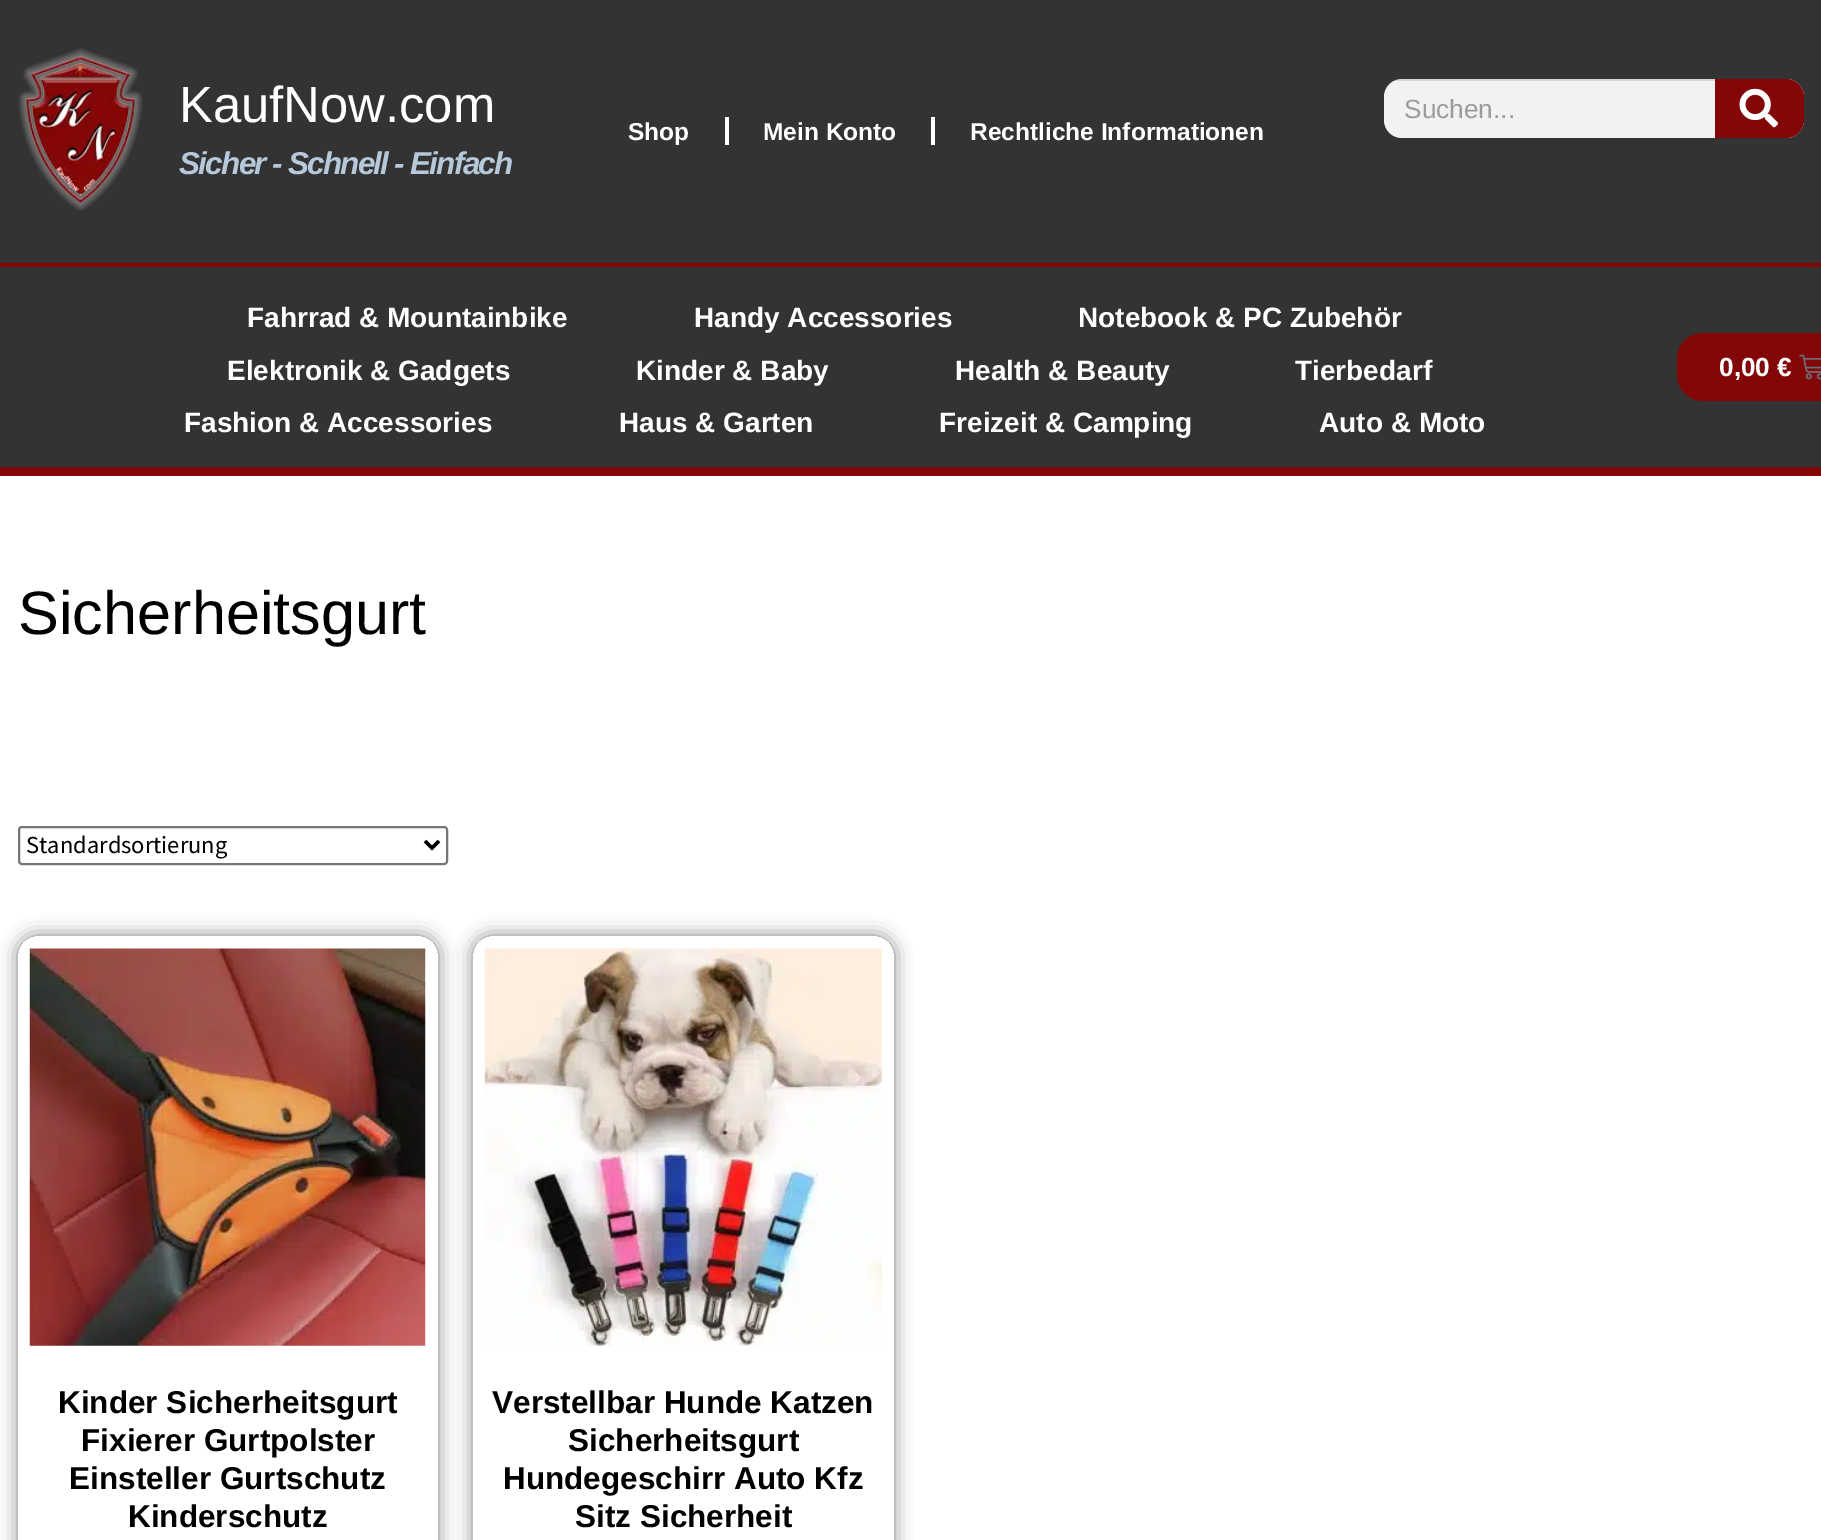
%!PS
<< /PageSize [1821 1540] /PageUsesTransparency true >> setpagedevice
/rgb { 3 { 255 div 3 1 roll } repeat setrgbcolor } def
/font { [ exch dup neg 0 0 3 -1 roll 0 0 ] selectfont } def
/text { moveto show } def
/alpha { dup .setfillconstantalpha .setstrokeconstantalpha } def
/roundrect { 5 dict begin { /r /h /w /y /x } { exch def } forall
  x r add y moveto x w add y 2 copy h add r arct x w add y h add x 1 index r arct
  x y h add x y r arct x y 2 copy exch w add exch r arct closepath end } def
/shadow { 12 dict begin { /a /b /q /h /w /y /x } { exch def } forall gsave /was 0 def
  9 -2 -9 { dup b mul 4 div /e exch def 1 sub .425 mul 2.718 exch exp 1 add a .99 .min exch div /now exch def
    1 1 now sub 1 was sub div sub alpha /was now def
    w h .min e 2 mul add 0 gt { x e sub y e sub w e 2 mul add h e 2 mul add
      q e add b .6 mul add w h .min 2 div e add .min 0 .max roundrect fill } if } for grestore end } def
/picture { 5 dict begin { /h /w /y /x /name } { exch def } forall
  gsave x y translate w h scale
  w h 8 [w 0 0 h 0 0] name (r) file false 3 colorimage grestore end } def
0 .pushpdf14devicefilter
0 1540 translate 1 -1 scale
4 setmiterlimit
255 255 255 rgb
0 0 1821 1540 rectfill
51 51 51 rgb
0 0 1821 263 rectfill
(img_01.rgb) 18 48 125 163 picture
241 242 243 rgb
1384 79 420 59 18 roundrect fill
gsave
1384 79 420 59 18 roundrect clip newpath
0.12 alpha
0 0 0 rgb
1394 79 321 2 rectfill
grestore
132 7 7 rgb
1715 79 moveto 71 0 rlineto 10 0 18 8 18 18 rcurveto 0 23 rlineto 0 10 -8 18 -18 18 rcurveto -71 0 rlineto closepath fill
(img_02.rgb) 1739 88 39 40 picture
255 255 255 rgb
725 117 4 28 rectfill
931 117 4 28 rectfill
51 51 51 rgb
0 267 1821 200 rectfill
132 7 7 rgb
0 263 1821 4 rectfill
0 467 1821 9 rectfill
1677 333 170 68 26 roundrect fill
(img_03.rgb) 1799 354 22 26 picture
118 118 118 rgb
2 setlinewidth
19 827 428 37 3 roundrect stroke
0 0 0 rgb
3.5 setlinewidth
425 841 moveto 7 7 rlineto 7 -7 rlineto stroke
gsave
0 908 moveto 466 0 rlineto 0 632 rlineto -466 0 rlineto closepath 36 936 moveto 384 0 rlineto 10 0 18 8 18 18 rcurveto 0 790 rlineto 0 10 -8 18 -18 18 rcurveto -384 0 rlineto -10 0 -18 -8 -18 -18 rcurveto 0 -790 rlineto 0 -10 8 -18 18 -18 rcurveto closepath eoclip newpath
18 936 420 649 18 9 0.5 shadow
grestore
(img_04.rgb) 29 948 397 398 picture
gsave
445 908 moveto 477 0 rlineto 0 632 rlineto -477 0 rlineto closepath 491 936 moveto 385 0 rlineto 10 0 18 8 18 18 rcurveto 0 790 rlineto 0 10 -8 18 -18 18 rcurveto -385 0 rlineto -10 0 -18 -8 -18 -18 rcurveto 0 -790 rlineto 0 -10 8 -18 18 -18 rcurveto closepath eoclip newpath
473 936 421 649 18 9 0.5 shadow
grestore
(img_05.rgb) 484 948 398 398 picture
/LiberationSans-Regular 50.75 font
255 255 255 rgb
(KaufNow.com) 179 122 text
/LiberationSans-BoldItalic 31.5 font
182 201 219 rgb
179 174 moveto -1.75 0 (Sicher - Schnell - Einfach) ashow
/LiberationSans-Regular 26.25 font
155 155 155 rgb
(Suchen...) 1404 118 text
/LiberationSans-Bold 24.5 font
255 255 255 rgb
(Shop) 628 140 text
(Mein Konto) 763 140 text
(Rechtliche Informationen) 970 140 text
/LiberationSans-Bold 28 font
(Fahrrad & Mountainbike) 247 327 text
(Handy Accessories) 694 327 text
(Notebook & PC Zubehör) 1078 327 text
(Elektronik & Gadgets) 227 380 text
(Kinder & Baby) 636 380 text
(Health & Beauty) 955 380 text
(Tierbedarf) 1295 380 text
(Fashion & Accessories) 184 432 text
(Haus & Garten) 619 432 text
(Freizeit & Camping) 939 432 text
(Auto & Moto) 1319 432 text
/LiberationSans-Bold 26.25 font
(0,00 €) 1719 376 text
/LiberationSans-Regular 61.25 font
0 0 0 rgb
(Sicherheitsgurt) 18 634 text
/SourceSansPro-Regular 24.5 font
(Standardsortierung) 26 853 text
/LiberationSans-Bold 31.5 font
(Kinder Sicherheitsgurt) 58 1413 text
(Fixierer Gurtpolster) 81 1451 text
(Einsteller Gurtschutz) 69 1489 text
(Kinderschutz) 128 1527 text
(Verstellbar Hunde Katzen) 492 1413 text
(Sicherheitsgurt) 568 1451 text
(Hundegeschirr Auto Kfz) 503 1489 text
(Sitz Sicherheit) 575 1527 text
.poppdf14devicefilter showpage
